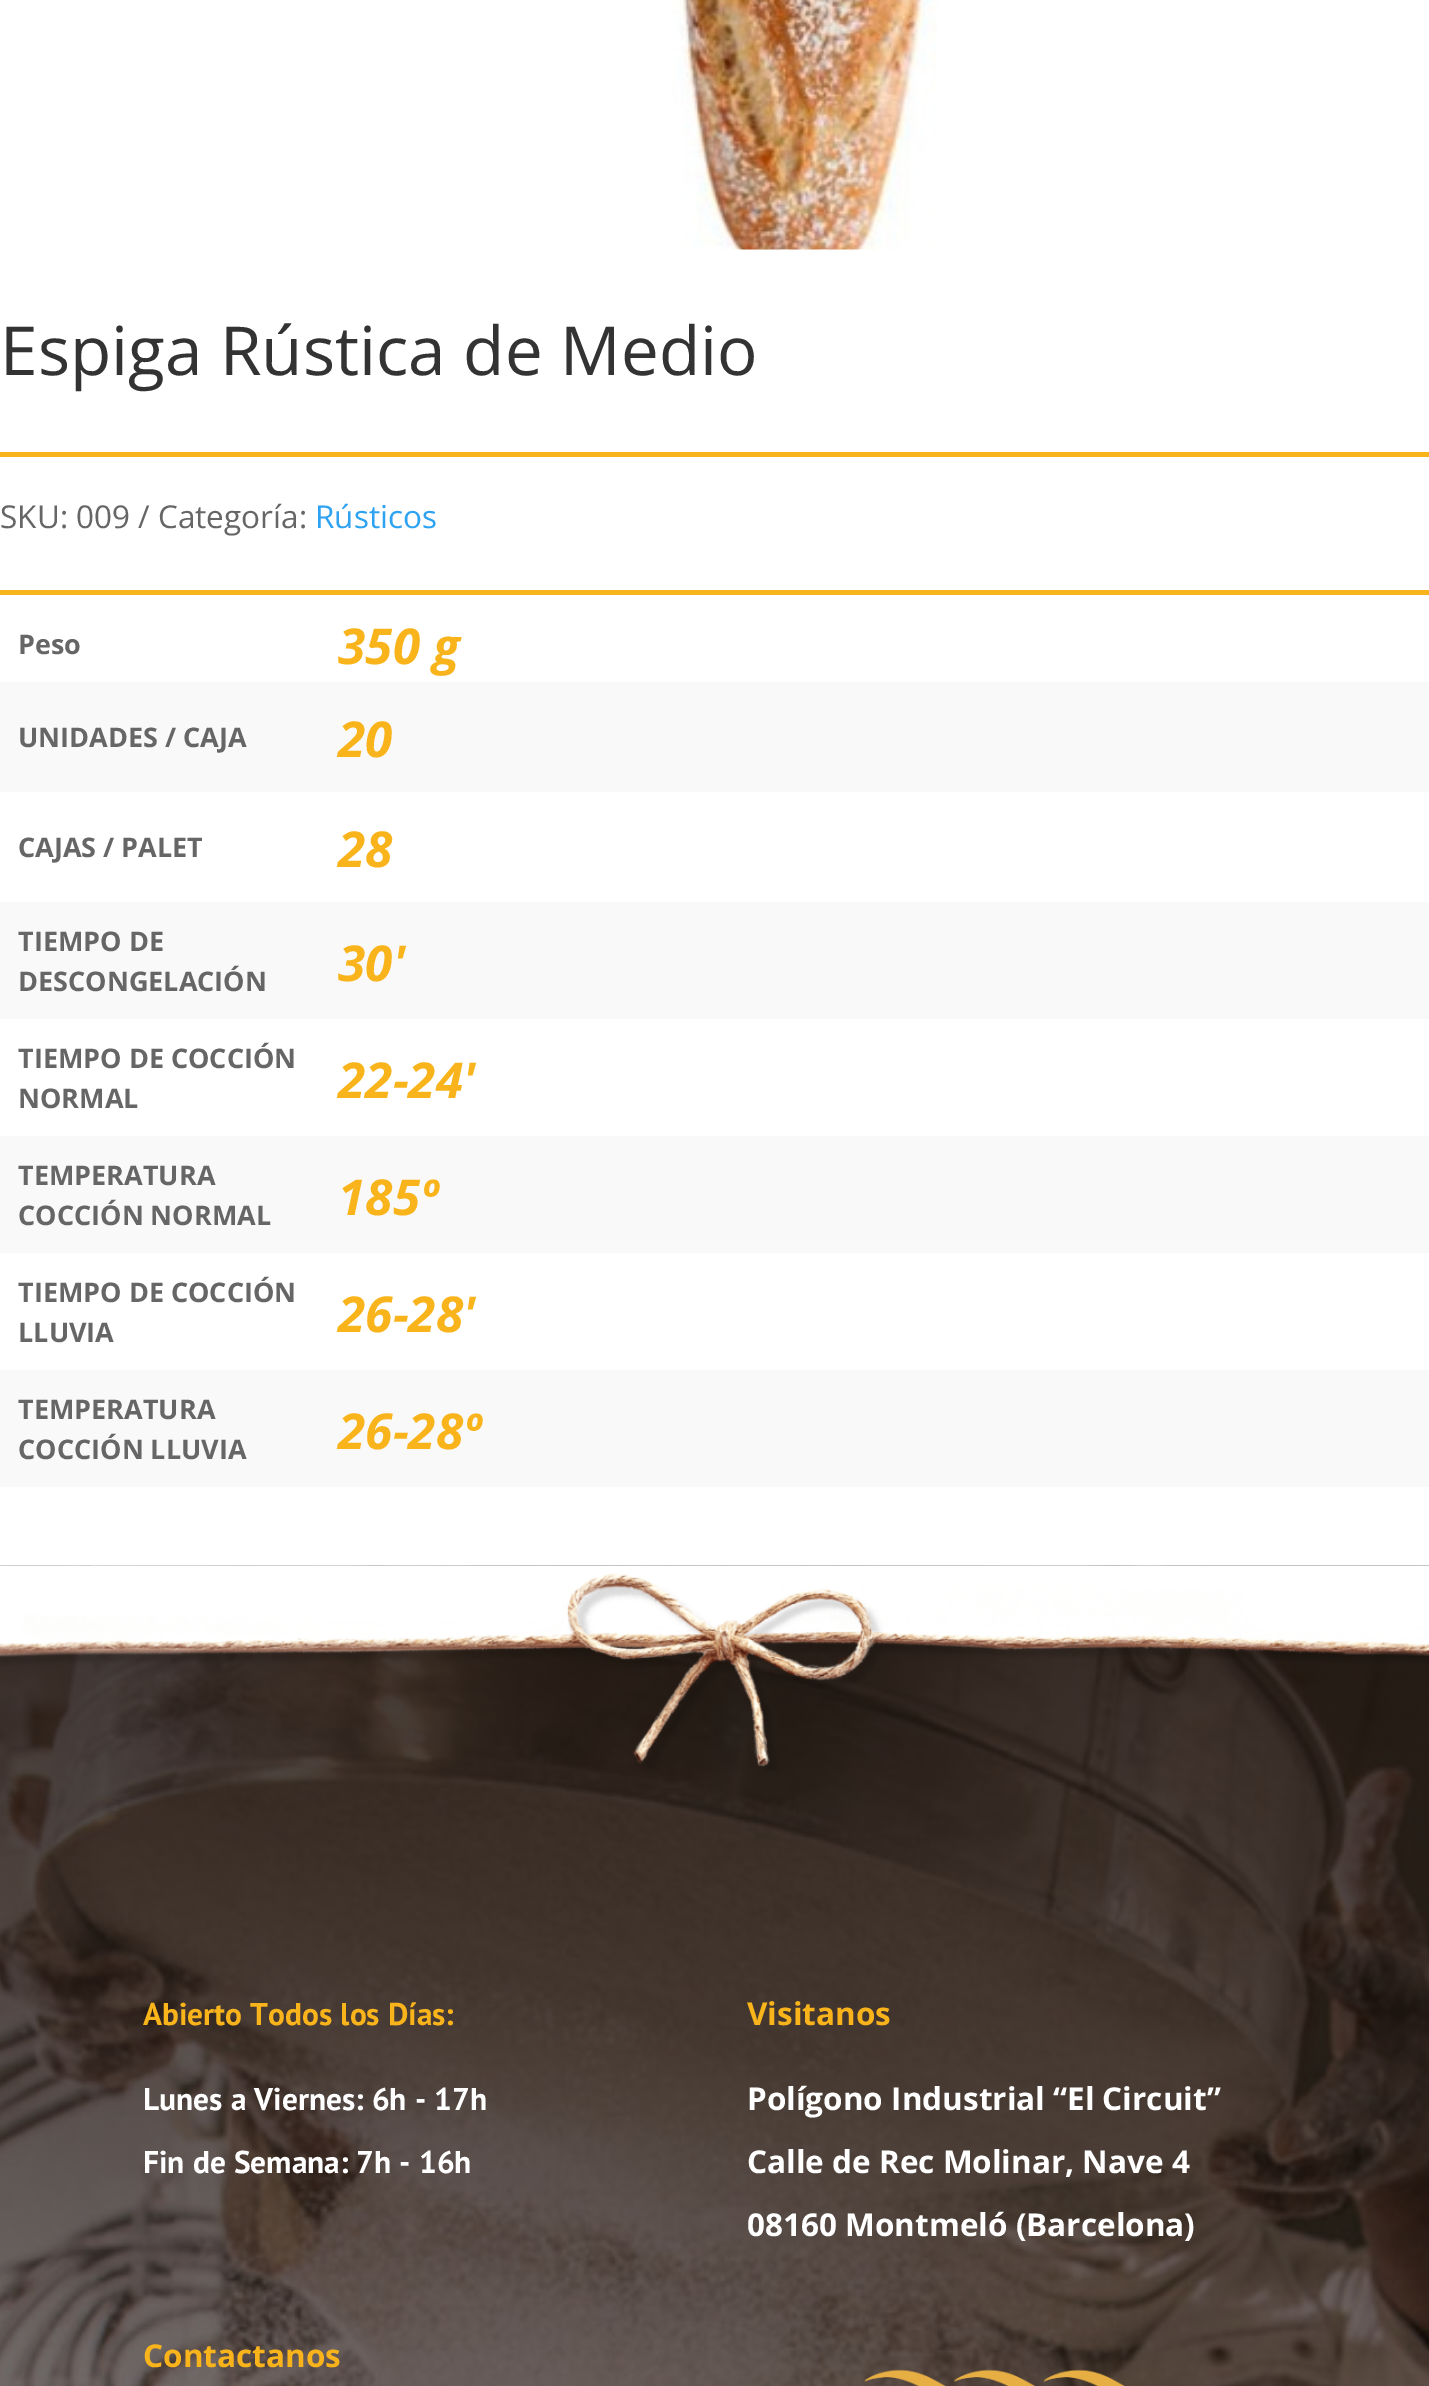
%!PS
<< /PageSize [1429 2386] >> setpagedevice
/rgb { 3 { 255 div 3 1 roll } repeat setrgbcolor } def
/font { [ exch dup neg 0 0 3 -1 roll 0 0 ] selectfont } def
/text { moveto show } def
/picture { 5 dict begin { /h /w /y /x /name } { exch def } forall
  gsave x y translate w h scale
  w h 8 [w 0 0 h 0 0] name (r) file false 3 colorimage grestore end } def
0 2386 translate 1 -1 scale
4 setmiterlimit
255 255 255 rgb
0 0 1429 2386 rectfill
(img_01.rgb) 672 0 265 250 picture
249 180 28 rgb
0 452 1429 5 rectfill
0 590 1429 5 rectfill
249 249 249 rgb
0 682 1429 110 rectfill
0 902 1429 117 rectfill
0 1136 1429 117 rectfill
0 1370 1429 117 rectfill
(img_02.rgb) 0 1565 1429 821 picture
(img_03.rgb) 0 1565 1429 206 picture
(img_04.rgb) 864 2369 261 17 picture
/OpenSans-Regular 67.5 font
51 51 51 rgb
(Espiga Rústica de Medio) 0 375 text
/OpenSans-Regular 31.5 font
102 102 102 rgb
(SKU: 009 / Categoría:) 0 528 text
46 163 242 rgb
(Rústicos) 315 528 text
/OpenSans-Bold 27 font
102 102 102 rgb
(Peso) 18 654 text
/OpenSans-BoldItalic 49.5 font
249 180 28 rgb
(350 g) 338 664 text
/OpenSans-Bold 27 font
102 102 102 rgb
(UNIDADES / CAJA) 18 747 text
/OpenSans-BoldItalic 49.5 font
249 180 28 rgb
(20) 338 757 text
/OpenSans-Bold 27 font
102 102 102 rgb
(CAJAS / PALET) 18 857 text
/OpenSans-BoldItalic 49.5 font
249 180 28 rgb
(28) 338 867 text
/OpenSans-Bold 27 font
102 102 102 rgb
(TIEMPO DE) 18 951 text
(DESCONGELACIÓN) 18 991 text
/OpenSans-BoldItalic 49.5 font
249 180 28 rgb
(30') 338 981 text
/OpenSans-Bold 27 font
102 102 102 rgb
(TIEMPO DE COCCIÓN) 18 1068 text
(NORMAL) 18 1108 text
/OpenSans-BoldItalic 49.5 font
249 180 28 rgb
(22-24') 338 1098 text
/OpenSans-Bold 27 font
102 102 102 rgb
(TEMPERATURA) 18 1185 text
(COCCIÓN NORMAL) 18 1225 text
/OpenSans-BoldItalic 49.5 font
249 180 28 rgb
(185º) 338 1215 text
/OpenSans-Bold 27 font
102 102 102 rgb
(TIEMPO DE COCCIÓN) 18 1302 text
(LLUVIA) 18 1342 text
/OpenSans-BoldItalic 49.5 font
249 180 28 rgb
(26-28') 338 1332 text
/OpenSans-Bold 27 font
102 102 102 rgb
(TEMPERATURA) 18 1419 text
(COCCIÓN LLUVIA) 18 1459 text
/OpenSans-BoldItalic 49.5 font
249 180 28 rgb
(26-28º) 338 1449 text
/PTSans-Bold 31.5 font
(Abierto Todos los Días:) 143 2025 text
255 255 255 rgb
(Lunes a Viernes: 6h - 17h) 143 2110 text
(Fin de Semana: 7h - 16h) 143 2173 text
/OpenSans-Bold 31.5 font
249 180 28 rgb
(Visitanos) 747 2025 text
255 255 255 rgb
(Polígono Industrial “El Circuit”) 747 2110 text
(Calle de Rec Molinar, Nave 4) 747 2173 text
(08160 Montmeló \(Barcelona\)) 747 2236 text
249 180 28 rgb
(Contactanos) 143 2367 text
showpage
